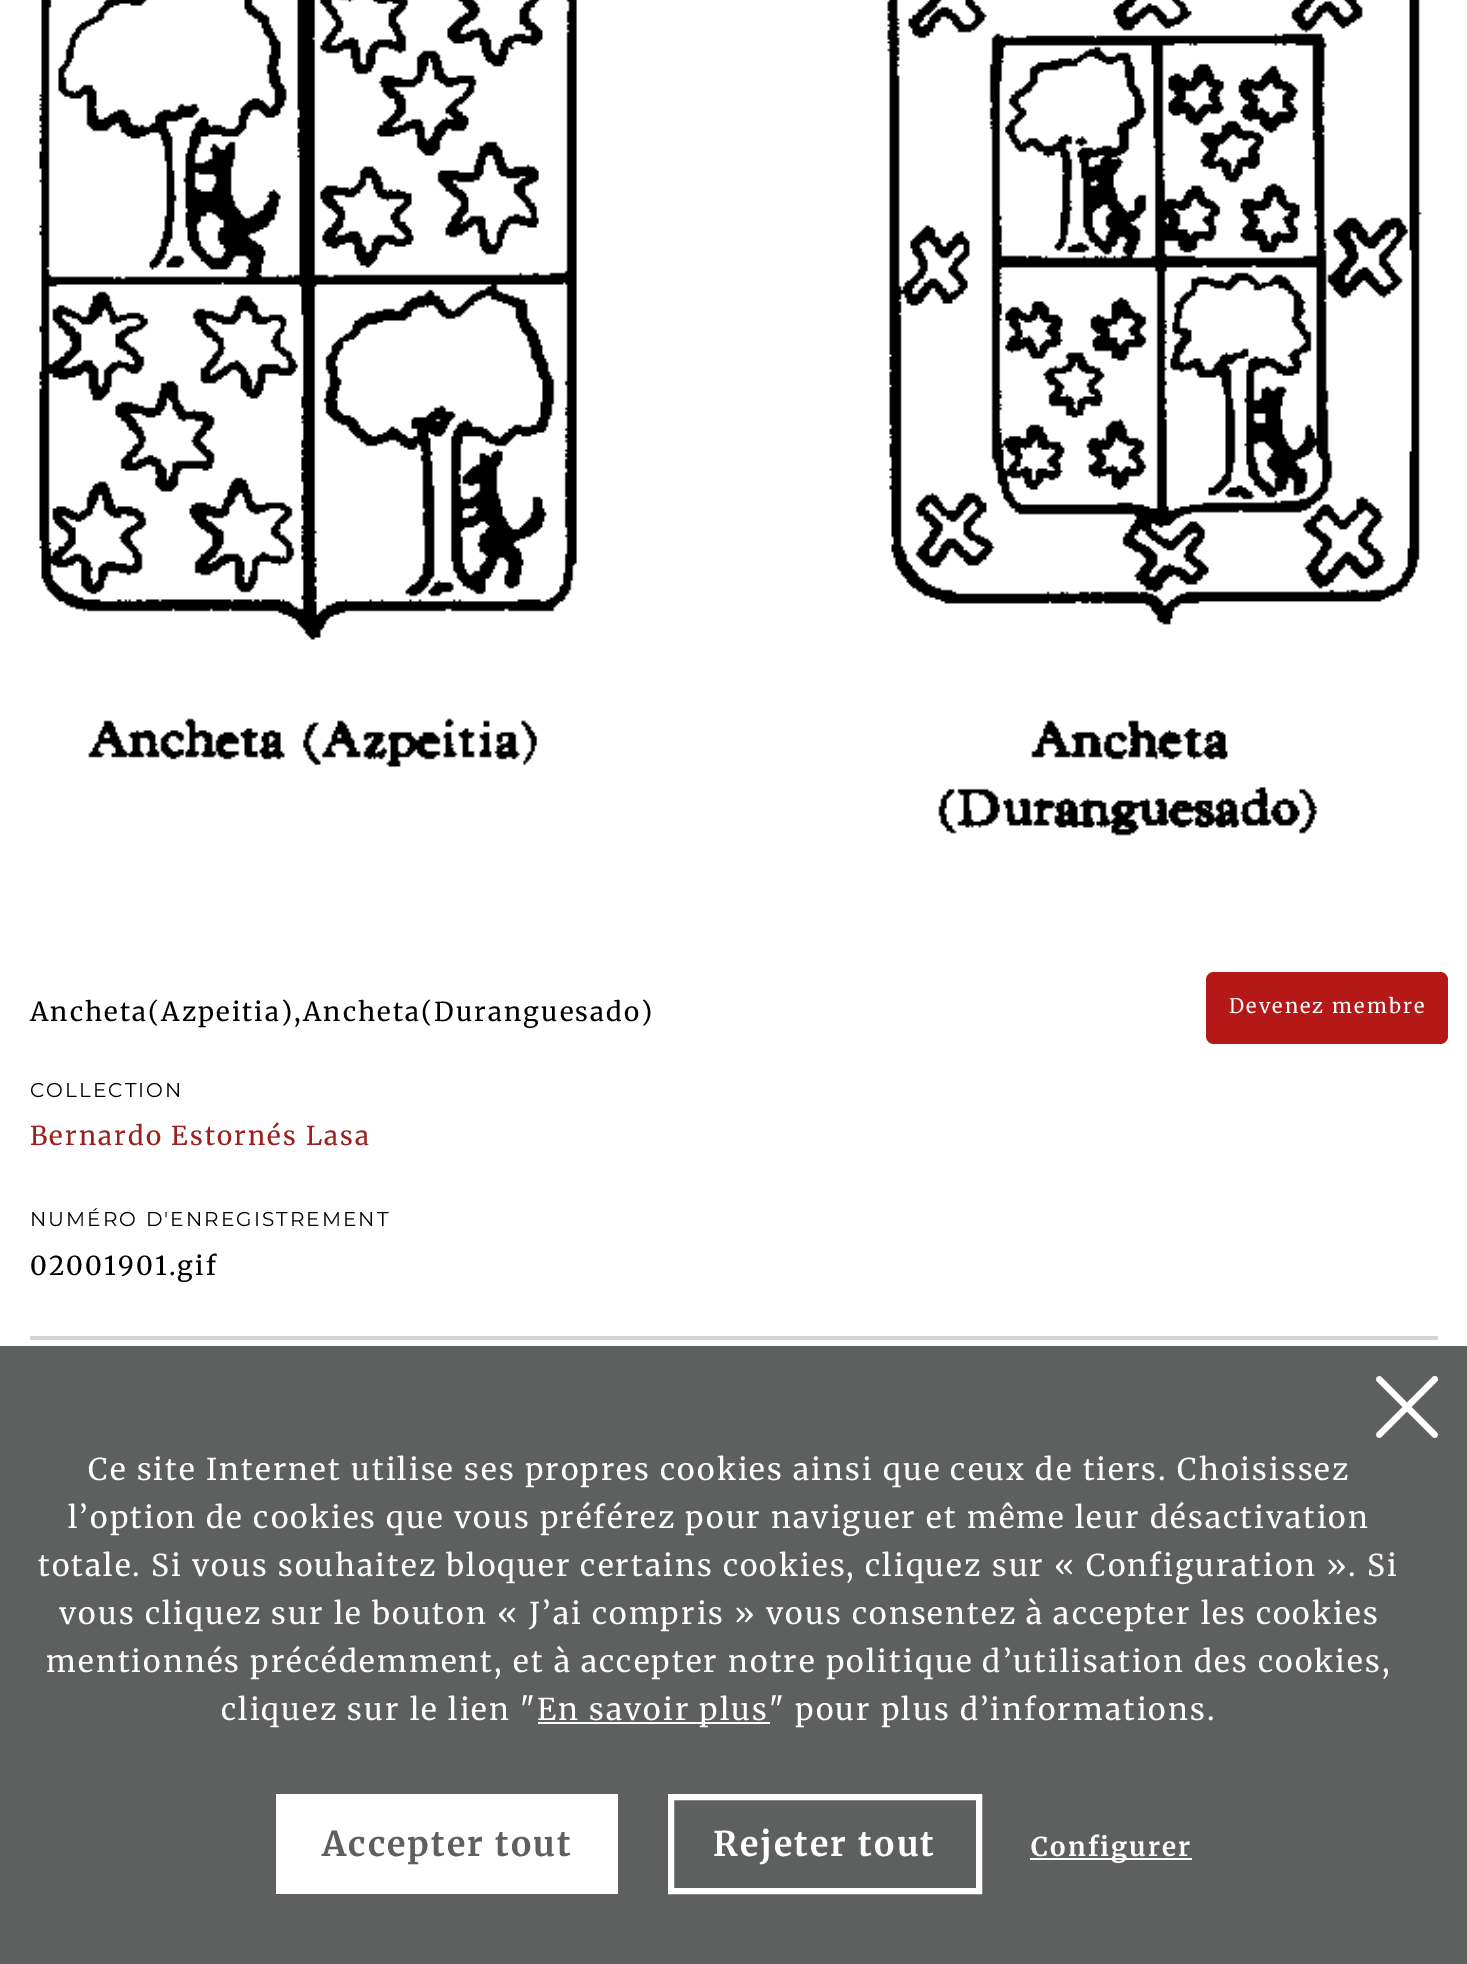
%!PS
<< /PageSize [1467 1964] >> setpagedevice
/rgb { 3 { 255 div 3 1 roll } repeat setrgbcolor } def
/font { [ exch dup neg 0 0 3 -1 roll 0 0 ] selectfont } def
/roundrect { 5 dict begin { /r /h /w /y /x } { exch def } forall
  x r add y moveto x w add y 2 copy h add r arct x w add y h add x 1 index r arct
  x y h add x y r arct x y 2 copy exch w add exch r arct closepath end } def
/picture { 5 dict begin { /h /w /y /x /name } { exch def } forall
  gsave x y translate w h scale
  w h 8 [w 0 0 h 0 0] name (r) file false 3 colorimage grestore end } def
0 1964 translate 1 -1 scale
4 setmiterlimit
255 255 255 rgb
0 0 1467 1964 rectfill
(img_01.rgb) 39 0 1383 836 picture
212 212 212 rgb
30 1336 1408 4 rectfill
181 25 23 rgb
1206 972 242 72 8 roundrect fill
94 95 95 rgb
0 1346 1467 618 rectfill
(img_02.rgb) 1376 1376 62 62 picture
255 255 255 rgb
538 1722 232 2 rectfill
276 1794 342 100 rectfill
6 setlinewidth
671 1797 308 94 rectstroke
1030 1858 162 2 rectfill
/Merriweather-Regular 26 font
0 0 0 rgb
30 1021 moveto 2.08 0 (Ancheta\(Azpeitia\),Ancheta\(Duranguesado\)) ashow
/Montserrat-Regular 20 font
30 1097 moveto 2.08 0 (COLLECTION) ashow
/Merriweather-Regular 26 font
155 31 29 rgb
30 1145 moveto 2.08 0 (Bernardo Estornés Lasa) ashow
/Montserrat-Regular 20 font
0 0 0 rgb
30 1226 moveto 2.08 0 (NUMÉRO D'ENREGISTREMENT) ashow
/Merriweather-Regular 26 font
30 1275 moveto 2.08 0 (02001901.gif) ashow
/Merriweather-Regular 20 font
255 255 255 rgb
1229 1013 moveto 2.08 0 (Devenez membre) ashow
/Merriweather-Regular 30 font
88 1480 moveto 2.08 0 (Ce site Internet utilise ses propres cookies ainsi que ceux de tiers. Choisissez) ashow
68 1528 moveto 2.08 0 (l’option de cookies que vous préférez pour naviguer et même leur désactivation) ashow
38 1576 moveto 2.08 0 (totale. Si vous souhaitez bloquer certains cookies, cliquez sur « Configuration ». Si) ashow
59 1624 moveto 2.08 0 (vous cliquez sur le bouton « J’ai compris » vous consentez à accepter les cookies) ashow
46 1672 moveto 2.08 0 (mentionnés précédemment, et à accepter notre politique d’utilisation des cookies,) ashow
221 1720 moveto 2.08 0 (cliquez sur le lien ") ashow
537 1720 moveto 2.08 0 (En savoir plus" pour plus d’informations.) ashow
/Merriweather-Bold 34 font
94 95 95 rgb
322 1856 moveto 2.08 0 (Accepter tout) ashow
255 255 255 rgb
713 1856 moveto 2.08 0 (Rejeter tout) ashow
/Merriweather-Bold 26 font
1031 1856 moveto 2.08 0 (Configurer) ashow
showpage
